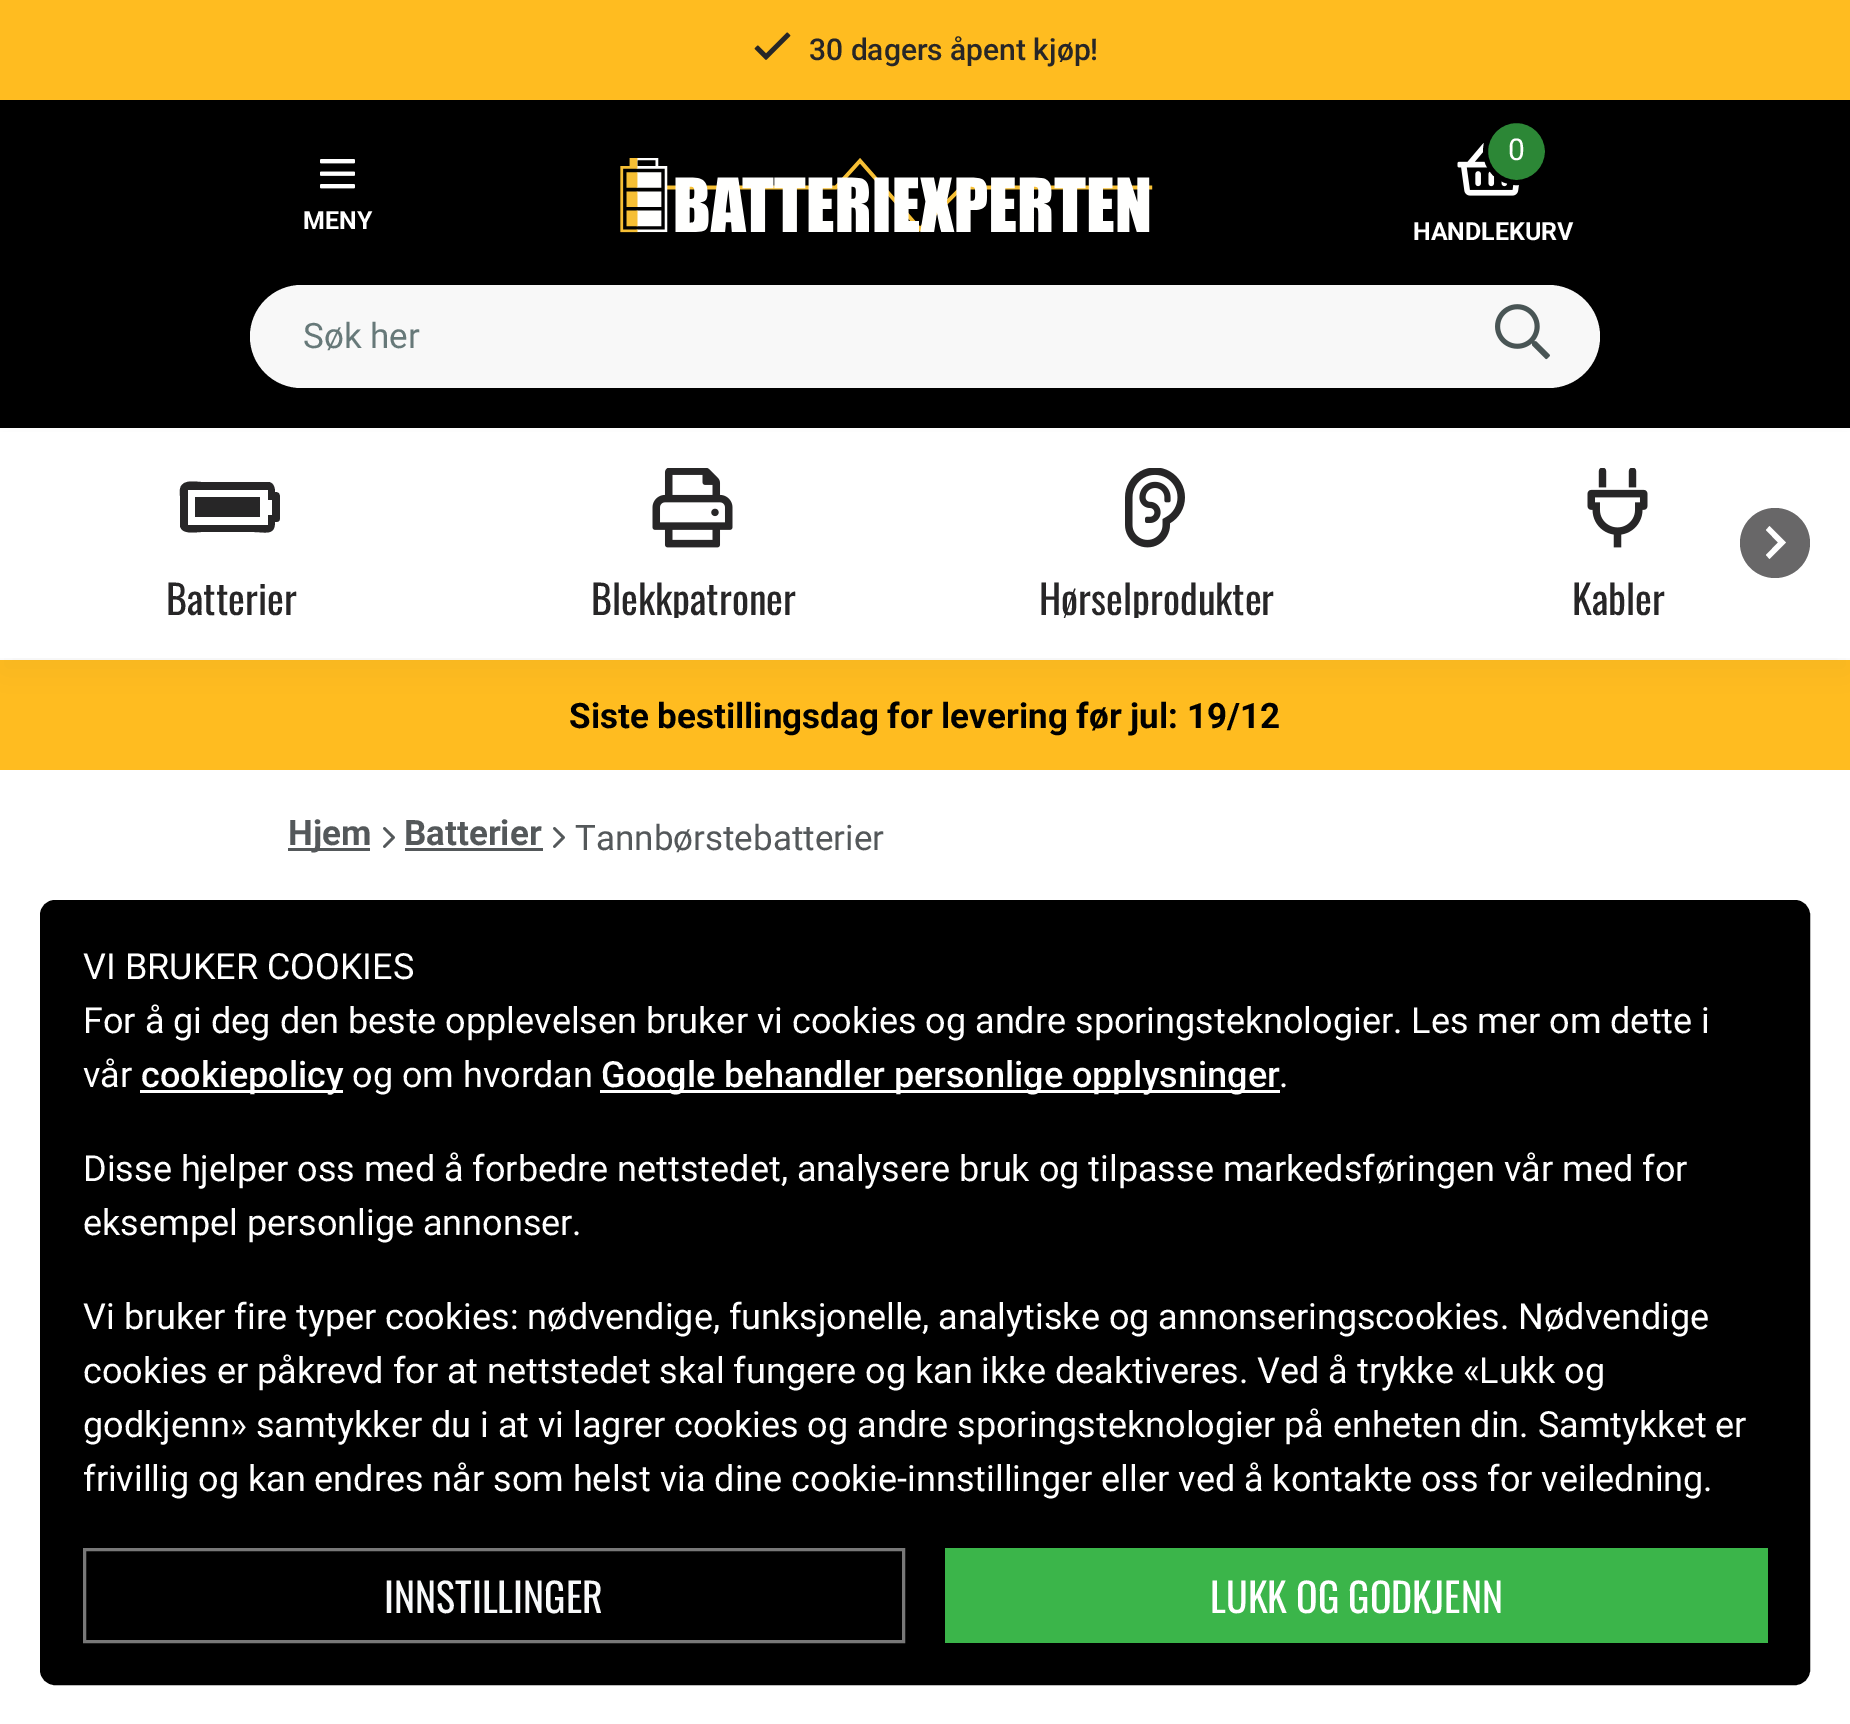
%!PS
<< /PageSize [1850 1724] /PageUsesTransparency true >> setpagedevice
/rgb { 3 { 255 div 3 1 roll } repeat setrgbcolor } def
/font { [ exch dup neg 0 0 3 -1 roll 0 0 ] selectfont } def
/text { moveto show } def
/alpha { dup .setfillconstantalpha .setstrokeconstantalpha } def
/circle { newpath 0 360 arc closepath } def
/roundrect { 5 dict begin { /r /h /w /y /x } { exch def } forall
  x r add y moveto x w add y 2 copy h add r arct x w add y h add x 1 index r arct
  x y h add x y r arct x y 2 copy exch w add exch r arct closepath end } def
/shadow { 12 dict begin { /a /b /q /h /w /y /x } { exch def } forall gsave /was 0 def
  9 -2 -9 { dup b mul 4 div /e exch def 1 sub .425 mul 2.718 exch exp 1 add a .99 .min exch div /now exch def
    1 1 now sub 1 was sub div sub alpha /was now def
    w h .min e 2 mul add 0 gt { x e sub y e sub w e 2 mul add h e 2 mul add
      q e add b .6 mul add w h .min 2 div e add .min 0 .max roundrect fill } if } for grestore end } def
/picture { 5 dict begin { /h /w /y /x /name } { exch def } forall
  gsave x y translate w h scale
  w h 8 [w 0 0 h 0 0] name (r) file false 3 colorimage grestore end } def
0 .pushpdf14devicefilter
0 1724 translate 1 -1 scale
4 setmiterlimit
255 255 255 rgb
0 0 1850 1724 rectfill
255 188 32 rgb
0 0 1850 100 rectfill
(img_01.rgb) 754 32 37 28 picture
0 0 0 rgb
0 100 1850 328 rectfill
(img_02.rgb) 320 159 35 30 picture
(img_03.rgb) 620 158 533 75 picture
(img_04.rgb) 1457 143 63 53 picture
44 135 54 rgb
1516.5 151.5 31 circle gsave fill grestore
0 0 0 rgb
5 setlinewidth
stroke
248 248 248 rgb
250 285 1350 103 51.5 roundrect fill
(img_05.rgb) 1495 304 55 56 picture
255 188 32 rgb
0 660 1850 110 rectfill
0 0 0 rgb
0 443 1850 230 0 16.5 0.04 shadow
255 255 255 rgb
0 432 1850 226 rectfill
104 103 104 rgb
1775 543 35 circle fill
255 255 255 rgb
1766 555 moveto 12 -12.5 rlineto -12 -12.5 rlineto 3.5 -4 rlineto 16.5 16.5 rlineto -16.5 16.5 rlineto closepath fill
39 38 39 rgb
268 490 moveto 0 10 rlineto 4 0 rlineto 0 15 rlineto -4 0 rlineto 0 10 rlineto -80 0 rlineto 0 -35 rlineto closepath 268 482 moveto -67 0 rlineto -3 0 -14 -2 -18 2 rcurveto -4 3 -3 7 -3 12 rcurveto 0 30 rlineto 2 9 16 6 21 6 rcurveto 53 0 rlineto 11 0 21 4 21 -10 rcurveto 5 0 5 -2 5 -7 rcurveto 0 -15 rlineto 0 -5 0 -8 -5 -8 rcurveto 0 -5 -2 -10 -7 -10 rcurveto closepath 260 497 moveto -65 0 rlineto 0 20 rlineto 65 0 rlineto closepath fill
(img_06.rgb) 652 468 81 80 picture
(img_07.rgb) 1125 468 60 80 picture
(img_08.rgb) 1587 468 61 80 picture
84 88 90 rgb
288 848 82 3 rectfill
(img_09.rgb) 383 827 12 21 picture
405 848 138 3 rectfill
(img_09.rgb) 553 827 12 21 picture
0 0 0 rgb
41.5 901.5 1767 782 13.5 roundrect gsave fill grestore
3 setlinewidth
stroke
255 255 255 rgb
140 1090 203 3 rectfill
600 1090 680 3 rectfill
120 120 120 rgb
84.5 1549.5 819 92 rectstroke
59 181 74 rgb
945 1548 823 95 rectfill
/Roboto-Medium 30 font
39 38 39 rgb
(30 dagers åpent kjøp!) 809 60 text
/Roboto-Bold 25 font
255 255 255 rgb
(MENY) 303 229 text
/Roboto-Regular 30 font
(0) 1508 160 text
/Roboto-Bold 25 font
(HANDLEKURV) 1413 240 text
/Roboto-Regular 35 font
103 121 121 rgb
(Søk her) 303 348 text
/Oswald-Regular 40 font
39 38 39 rgb
(Batterier) 166 615 text
gsave
0 468 1850 150 rectclip
(Blekkpatroner) 591 615 text
(Hørselprodukter) 1039 615 text
grestore
(Kabler) 1572 615 text
/Roboto-Bold 35 font
0 0 0 rgb
(Siste bestillingsdag for levering før jul: 19/12) 569 728 text
84 88 90 rgb
(Hjem) 288 845 text
(Batterier) 404 845 text
/Roboto-Regular 35 font
(Tannbørstebatterier) 575 850 text
/Roboto-Regular 36 font
255 255 255 rgb
(VI BRUKER COOKIES) 83 979 text
(For å gi deg den beste opplevelsen bruker vi cookies og andre sporingsteknologier. Les mer om dette i) 83 1033 text
(vår) 83 1087 text
/Roboto-Medium 36 font
(cookiepolicy) 141 1087 text
/Roboto-Regular 36 font
(og om hvordan) 352 1087 text
/Roboto-Medium 36 font
(Google behandler personlige opplysninger) 601 1087 text
/Roboto-Regular 36 font
(.) 1279 1087 text
(Disse hjelper oss med å forbedre nettstedet, analysere bruk og tilpasse markedsføringen vår med for) 83 1181 text
(eksempel personlige annonser.) 83 1235 text
(Vi bruker fire typer cookies: nødvendige, funksjonelle, analytiske og annonseringscookies. Nødvendige) 83 1329 text
(cookies er påkrevd for at nettstedet skal fungere og kan ikke deaktiveres. Ved å trykke «Lukk og) 83 1383 text
(godkjenn» samtykker du i at vi lagrer cookies og andre sporingsteknologier på enheten din. Samtykket er) 83 1437 text
(frivillig og kan endres når som helst via dine cookie-innstillinger eller ved å kontakte oss for veiledning.) 83 1491 text
/Oswald-Regular 40 font
248 249 250 rgb
(INNSTILLINGER) 384 1613 text
255 255 255 rgb
(LUKK OG GODKJENN) 1210 1613 text
.poppdf14devicefilter showpage
